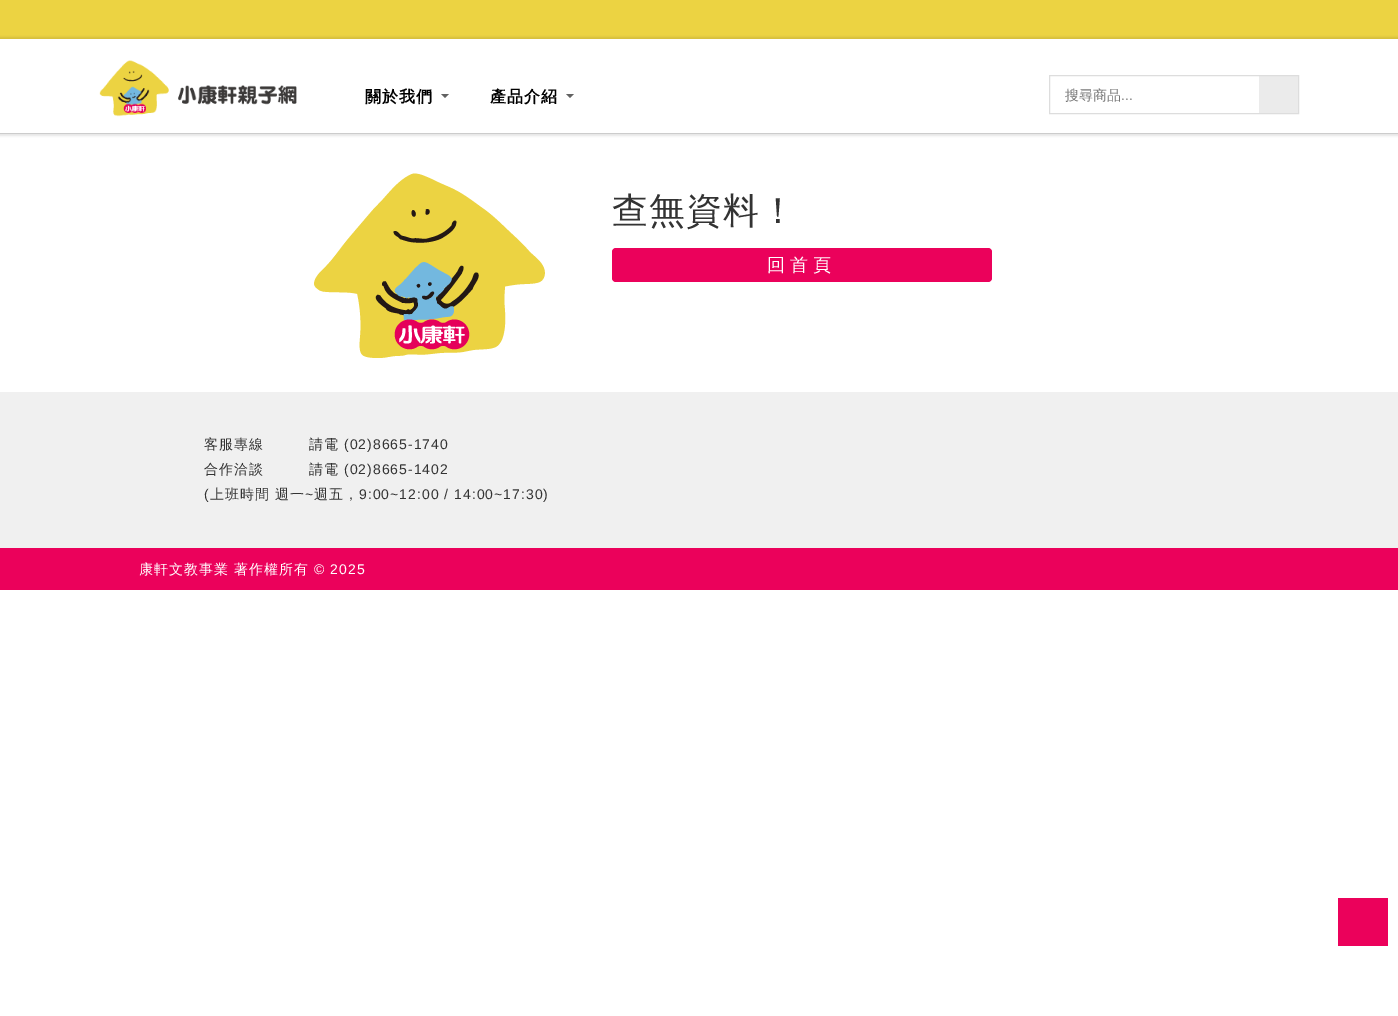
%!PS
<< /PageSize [1398 1016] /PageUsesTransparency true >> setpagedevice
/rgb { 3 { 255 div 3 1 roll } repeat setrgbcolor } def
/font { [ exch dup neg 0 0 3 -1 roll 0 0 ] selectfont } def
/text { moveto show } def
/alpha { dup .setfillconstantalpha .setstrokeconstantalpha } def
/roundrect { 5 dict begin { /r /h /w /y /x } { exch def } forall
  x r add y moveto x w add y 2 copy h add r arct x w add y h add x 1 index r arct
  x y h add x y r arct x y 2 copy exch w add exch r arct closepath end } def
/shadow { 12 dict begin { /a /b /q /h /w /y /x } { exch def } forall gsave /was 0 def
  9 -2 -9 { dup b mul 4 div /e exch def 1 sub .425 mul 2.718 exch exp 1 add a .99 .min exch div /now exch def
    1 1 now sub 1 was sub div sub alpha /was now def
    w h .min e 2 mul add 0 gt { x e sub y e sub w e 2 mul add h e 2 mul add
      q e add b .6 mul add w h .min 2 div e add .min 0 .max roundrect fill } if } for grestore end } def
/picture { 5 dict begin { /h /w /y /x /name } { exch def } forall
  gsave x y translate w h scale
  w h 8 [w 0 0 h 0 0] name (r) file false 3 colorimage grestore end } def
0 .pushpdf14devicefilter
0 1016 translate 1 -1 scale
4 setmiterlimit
255 255 255 rgb
0 0 1398 1016 rectfill
236 211 66 rgb
0 0 1398 39 rectfill
gsave
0 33 moveto 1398 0 rlineto 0 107 rlineto -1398 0 rlineto closepath 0 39 moveto 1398 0 rlineto 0 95 rlineto -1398 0 rlineto closepath eoclip newpath
0 0 0 rgb
-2 37 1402 99 0 1 0.1 shadow
grestore
204 204 204 rgb
0 133 1398 1 rectfill
(img_01.rgb) 99 60 198 57 picture
98 98 98 rgb
441 94 moveto 8 0 rlineto -4 4 rlineto closepath fill
566 94 moveto 8 0 rlineto -4 4 rlineto closepath fill
221 221 221 rgb
1049.5 75.5 249 38 rectstroke
0.6 alpha
1259 76 39 37 rectfill
1 alpha
(img_02.rgb) 314 173 231 185 picture
235 1 91 rgb
612 248 380 34 4 roundrect fill
240 240 240 rgb
0 392 1398 156 rectfill
235 1 91 rgb
0 548 1398 42 rectfill
1338 898 50 48 rectfill
/WenQuanYiZenHei-Bold 16 font
0 0 0 rgb
365 102 moveto 1 0 (關於我們) ashow
490 102 moveto 1 0 (產品介紹) ashow
/WenQuanYiZenHei-Medium 14 font
117 117 117 rgb
(搜尋商品) 1065 100 text
/LiberationSans-Regular 14 font
(...) 1121 100 text
/WenQuanYiZenHei-Medium 36 font
51 51 51 rgb
612 223 moveto 1 0 (查無資料！) ashow
/WenQuanYiZenHei-Medium 18 font
255 255 255 rgb
767 271 moveto 5 0 (回首頁) ashow
/WenQuanYiZenHei-Medium 14 font
51 51 51 rgb
204 449 moveto 1 0 (客服專線　　　請電) ashow
/LiberationSans-Regular 14 font
344 449 moveto 1 0 (\(02\)8665-1740) ashow
/WenQuanYiZenHei-Medium 14 font
204 474 moveto 1 0 (合作洽談　　　請電) ashow
/LiberationSans-Regular 14 font
344 474 moveto 1 0 (\(02\)8665-1402) ashow
204 499 moveto 1 0 (\() ashow
/WenQuanYiZenHei-Medium 14 font
210 499 moveto 1 0 (上班時間) ashow
275 499 moveto 1 0 (週一) ashow
/LiberationSans-Regular 14 font
305 499 moveto 1 0 (~) ashow
/WenQuanYiZenHei-Medium 14 font
314 499 moveto 1 0 (週五，) ashow
/LiberationSans-Regular 14 font
359 499 moveto 1 0 (9:00~12:00 / 14:00~17:30\)) ashow
/WenQuanYiZenHei-Medium 14 font
255 255 255 rgb
139 574 moveto 1 0 (康軒文教事業) ashow
234 574 moveto 1 0 (著作權所有) ashow
/LiberationSans-Regular 14 font
314 574 moveto 1 0 (© 2025) ashow
.poppdf14devicefilter showpage
